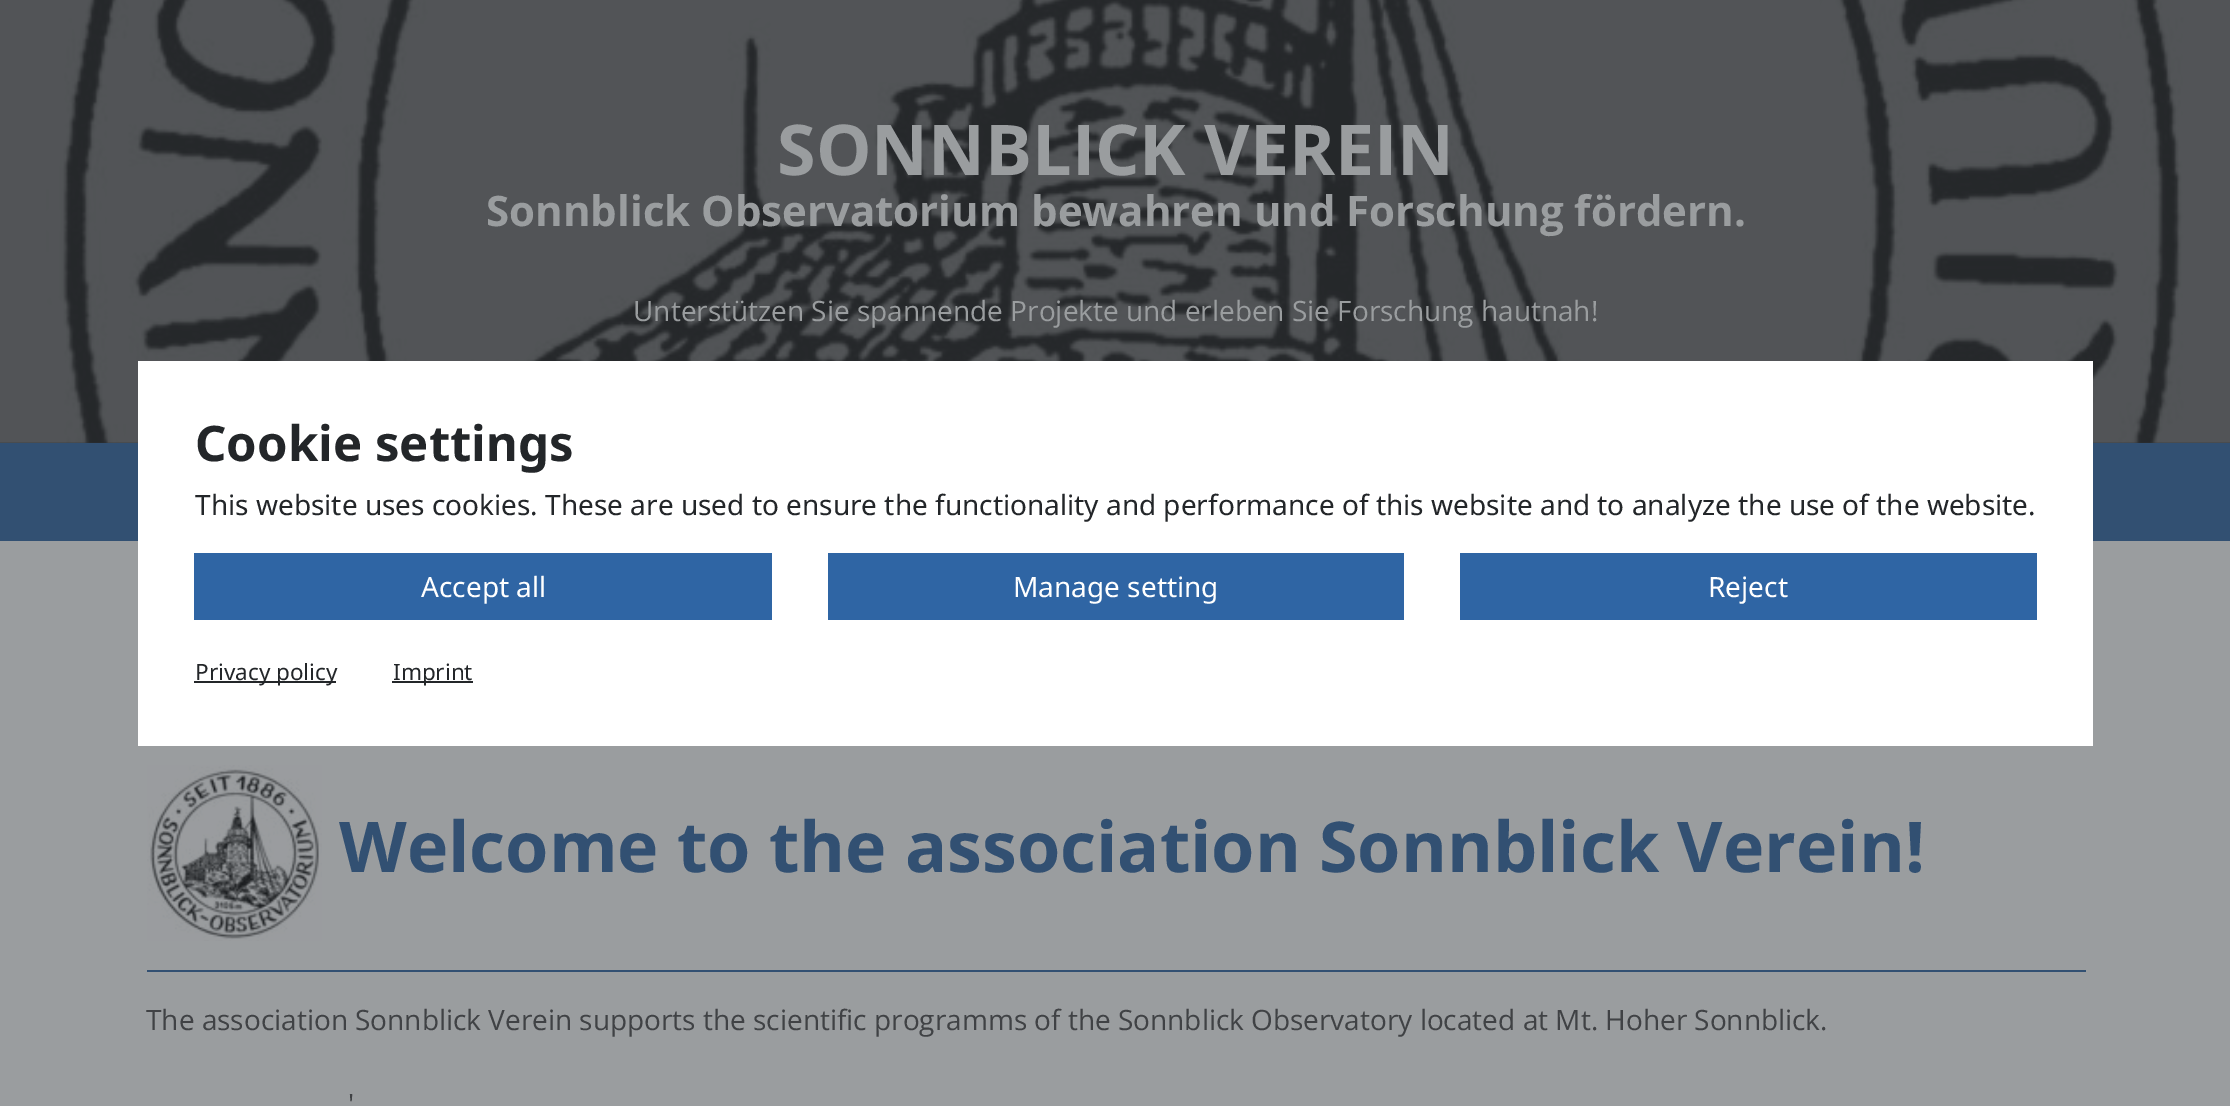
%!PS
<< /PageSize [2230 1106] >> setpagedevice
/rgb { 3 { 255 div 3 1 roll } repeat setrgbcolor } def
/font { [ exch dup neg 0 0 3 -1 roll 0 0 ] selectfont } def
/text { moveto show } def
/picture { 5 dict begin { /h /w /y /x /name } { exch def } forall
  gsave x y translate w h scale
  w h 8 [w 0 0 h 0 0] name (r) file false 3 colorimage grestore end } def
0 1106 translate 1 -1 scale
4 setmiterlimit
154 157 159 rgb
0 0 2230 1106 rectfill
(img_01.rgb) 0 0 2230 443 picture
50 80 114 rgb
0 443 2230 98 rectfill
(img_02.rgb) 147 765 175 176 picture
147 970 1939 2 rectfill
255 255 255 rgb
138 361 1955 385 rectfill
47 101 164 rgb
194 553 578 67 rectfill
828 553 576 67 rectfill
1460 553 577 67 rectfill
35 38 41 rgb
194 681 142 2 rectfill
392 681 81 2 rectfill
/OpenSans-Bold 70 font
154 157 159 rgb
(SONNBLICK VEREIN) 777 175 text
/OpenSans-Bold 42 font
(Sonnblick Observatorium bewahren und Forschung fördern.) 486 226 text
/OpenSans-Regular 28 font
(Unterstützen Sie spannende Projekte und erleben Sie Forschung hautnah!) 633 321 text
/OpenSans-Bold 70 font
50 80 114 rgb
(Welcome to the association Sonnblick Verein!) 339 872 text
/OpenSans-Regular 28 font
64 66 69 rgb
(The association Sonnblick Verein supports the scientific programms of the Sonnblick Observatory located at Mt. Hoher Sonnblick.) 146 1030 text
(') 348 1114 text
/NotoSans-Bold 49 font
35 38 41 rgb
(Cookie settings) 195 461 text
/NotoSans-Regular 28 font
(This website uses cookies. These are used to ensure the functionality and performance of this website and to analyze the use of the website.) 195 515 text
255 255 255 rgb
(Accept all) 421 597 text
(Manage setting) 1013 597 text
(Reject) 1708 597 text
/NotoSans-Regular 22.5 font
35 38 41 rgb
(Privacy policy) 195 680 text
(Imprint) 393 680 text
showpage
